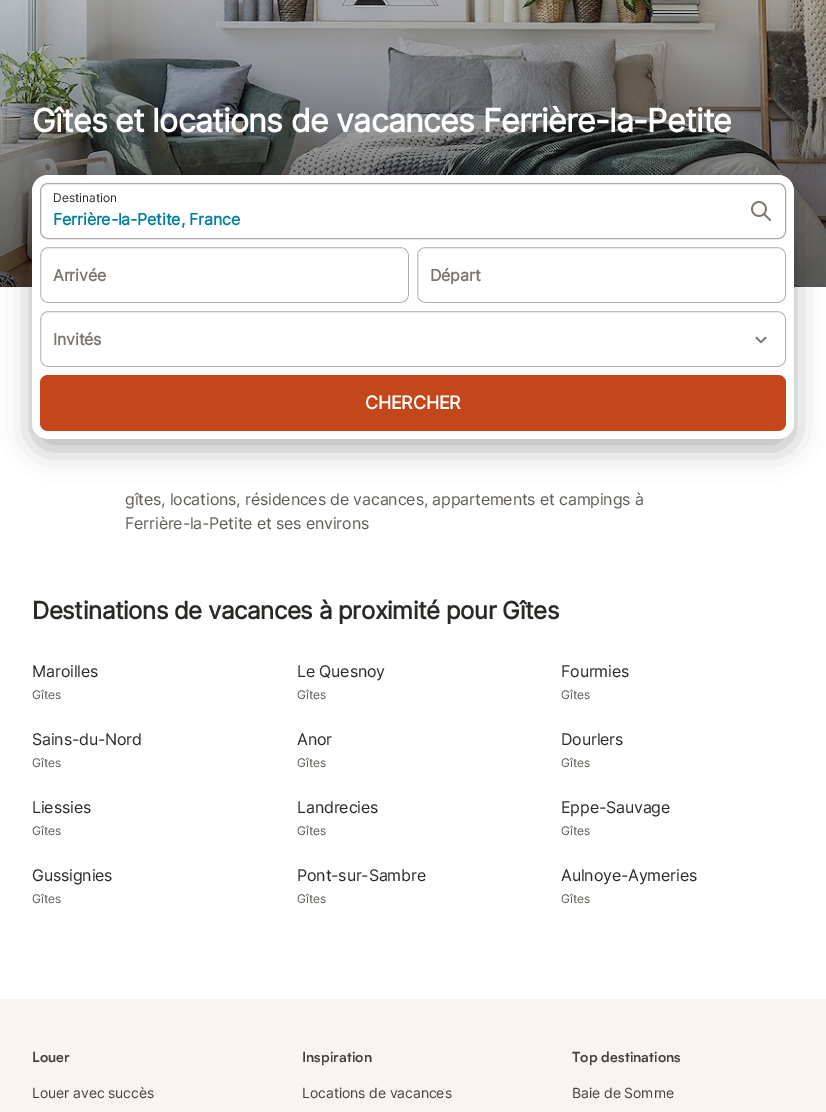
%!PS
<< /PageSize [826 1112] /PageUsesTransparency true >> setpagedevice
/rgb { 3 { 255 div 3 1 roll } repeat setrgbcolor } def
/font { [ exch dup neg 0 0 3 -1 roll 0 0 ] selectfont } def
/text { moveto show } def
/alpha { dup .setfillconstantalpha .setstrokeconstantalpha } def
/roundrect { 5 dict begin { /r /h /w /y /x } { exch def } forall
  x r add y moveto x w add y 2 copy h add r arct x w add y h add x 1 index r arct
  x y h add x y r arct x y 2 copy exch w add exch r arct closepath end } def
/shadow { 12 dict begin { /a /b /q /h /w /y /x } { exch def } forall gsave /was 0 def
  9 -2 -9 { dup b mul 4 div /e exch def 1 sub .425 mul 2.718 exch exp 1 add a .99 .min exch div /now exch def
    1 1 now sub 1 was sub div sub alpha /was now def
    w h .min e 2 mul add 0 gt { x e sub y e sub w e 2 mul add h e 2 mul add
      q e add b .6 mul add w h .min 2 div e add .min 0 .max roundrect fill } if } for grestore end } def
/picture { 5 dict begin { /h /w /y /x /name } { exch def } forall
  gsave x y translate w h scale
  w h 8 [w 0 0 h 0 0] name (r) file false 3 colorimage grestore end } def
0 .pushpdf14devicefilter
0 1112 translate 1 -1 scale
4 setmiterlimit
255 255 255 rgb
0 0 826 1112 rectfill
(img_01.rgb) 0 0 826 287 picture
0 0 0 rgb
32 185 762 264 16 15 0.3 shadow
255 255 255 rgb
32 175 762 264 16 roundrect fill
175 170 165 rgb
40.5 183.5 745 55 7.5 roundrect stroke
(img_02.rgb) 751 201 20 20 picture
40.5 247.5 368 55 7.5 roundrect stroke
255 255 255 rgb
39.5 246.5 370 57 8.5 roundrect stroke
175 170 165 rgb
417.5 247.5 368 55 7.5 roundrect stroke
255 255 255 rgb
416.5 246.5 370 57 8.5 roundrect stroke
175 170 165 rgb
40.5 311.5 745 55 7.5 roundrect stroke
255 255 255 rgb
39.5 310.5 747 57 8.5 roundrect stroke
(img_03.rgb) 755 336 12 8 picture
195 71 27 rgb
40 375 746 56 8 roundrect fill
247 245 243 rgb
0 999 826 113 rectfill
/Inter-Bold 32 font
255 255 255 rgb
32 132 moveto -0.7 0 (Gîtes et locations de vacances Ferrière-la-Petite) ashow
/Inter-Regular 12 font
43 41 38 rgb
(Destination) 53 202 text
/Inter-Bold 16 font
0 128 157 rgb
53 225 moveto -0.18 0 (Ferrière-la-Petite, France) ashow
122 117 112 rgb
53 281 moveto -0.18 0 (Arrivée) ashow
430 281 moveto -0.18 0 (Départ) ashow
53 345 moveto -0.18 0 (Invités) ashow
/Inter-Bold 18 font
255 255 255 rgb
365 409 moveto -0.25 0 (CHERCHER) ashow
/Inter-Regular 16 font
96 92 87 rgb
125 505 moveto -0.18 0 (gîtes, locations, résidences de vacances, appartements et campings à) ashow
125 529 moveto -0.18 0 (Ferrière-la-Petite et ses environs) ashow
/Inter-Bold 24 font
43 41 38 rgb
32 619 moveto -0.45 0 (Destinations de vacances à proximité pour Gîtes) ashow
/Inter-Regular 16 font
32 677 moveto -0.18 0 (Maroilles) ashow
/Inter-Regular 12 font
96 92 87 rgb
(Gîtes) 32 699 text
/Inter-Regular 16 font
43 41 38 rgb
297 677 moveto -0.18 0 (Le Quesnoy) ashow
/Inter-Regular 12 font
96 92 87 rgb
(Gîtes) 297 699 text
/Inter-Regular 16 font
43 41 38 rgb
561 677 moveto -0.18 0 (Fourmies) ashow
/Inter-Regular 12 font
96 92 87 rgb
(Gîtes) 561 699 text
/Inter-Regular 16 font
43 41 38 rgb
32 745 moveto -0.18 0 (Sains-du-Nord) ashow
/Inter-Regular 12 font
96 92 87 rgb
(Gîtes) 32 767 text
/Inter-Regular 16 font
43 41 38 rgb
297 745 moveto -0.18 0 (Anor) ashow
/Inter-Regular 12 font
96 92 87 rgb
(Gîtes) 297 767 text
/Inter-Regular 16 font
43 41 38 rgb
561 745 moveto -0.18 0 (Dourlers) ashow
/Inter-Regular 12 font
96 92 87 rgb
(Gîtes) 561 767 text
/Inter-Regular 16 font
43 41 38 rgb
32 813 moveto -0.18 0 (Liessies) ashow
/Inter-Regular 12 font
96 92 87 rgb
(Gîtes) 32 835 text
/Inter-Regular 16 font
43 41 38 rgb
297 813 moveto -0.18 0 (Landrecies) ashow
/Inter-Regular 12 font
96 92 87 rgb
(Gîtes) 297 835 text
/Inter-Regular 16 font
43 41 38 rgb
561 813 moveto -0.18 0 (Eppe-Sauvage) ashow
/Inter-Regular 12 font
96 92 87 rgb
(Gîtes) 561 835 text
/Inter-Regular 16 font
43 41 38 rgb
32 881 moveto -0.18 0 (Gussignies) ashow
/Inter-Regular 12 font
96 92 87 rgb
(Gîtes) 32 903 text
/Inter-Regular 16 font
43 41 38 rgb
297 881 moveto -0.18 0 (Pont-sur-Sambre) ashow
/Inter-Regular 12 font
96 92 87 rgb
(Gîtes) 297 903 text
/Inter-Regular 16 font
43 41 38 rgb
561 881 moveto -0.18 0 (Aulnoye-Aymeries) ashow
/Inter-Regular 12 font
96 92 87 rgb
(Gîtes) 561 903 text
/Satoshi-Bold 14 font
69 66 62 rgb
32 1062 moveto 0.1 0 (Louer) ashow
/Inter-Regular 14 font
32 1098 moveto -0.1 0 (Louer avec succès) ashow
/Satoshi-Bold 14 font
302 1062 moveto 0.1 0 (Inspiration) ashow
/Inter-Regular 14 font
302 1098 moveto -0.1 0 (Locations de vacances) ashow
/Satoshi-Bold 14 font
572 1062 moveto 0.1 0 (Top destinations) ashow
/Inter-Regular 14 font
572 1098 moveto -0.1 0 (Baie de Somme) ashow
.poppdf14devicefilter showpage
